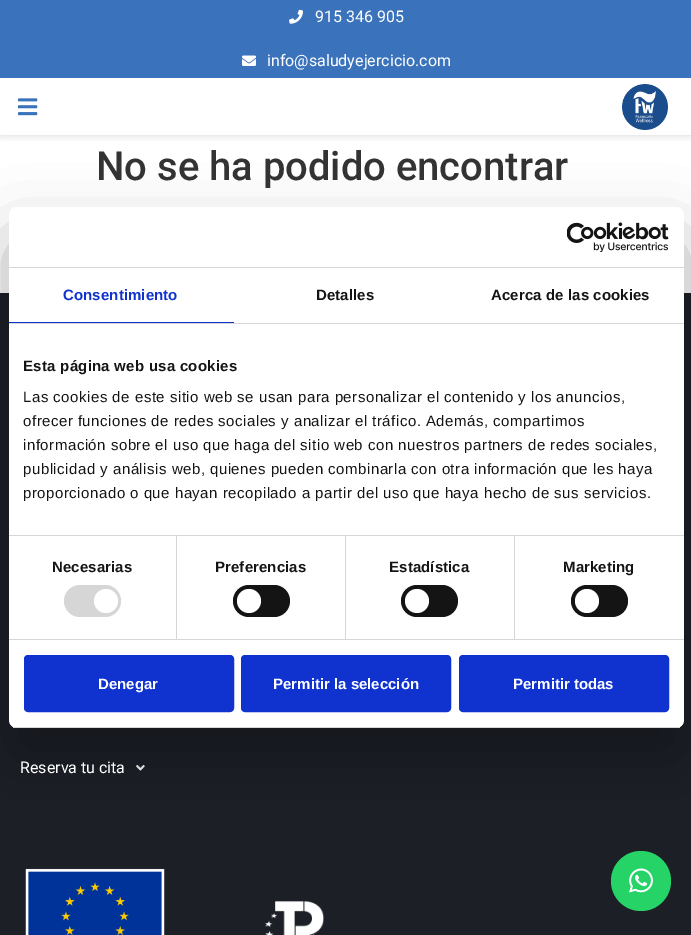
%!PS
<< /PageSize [691 935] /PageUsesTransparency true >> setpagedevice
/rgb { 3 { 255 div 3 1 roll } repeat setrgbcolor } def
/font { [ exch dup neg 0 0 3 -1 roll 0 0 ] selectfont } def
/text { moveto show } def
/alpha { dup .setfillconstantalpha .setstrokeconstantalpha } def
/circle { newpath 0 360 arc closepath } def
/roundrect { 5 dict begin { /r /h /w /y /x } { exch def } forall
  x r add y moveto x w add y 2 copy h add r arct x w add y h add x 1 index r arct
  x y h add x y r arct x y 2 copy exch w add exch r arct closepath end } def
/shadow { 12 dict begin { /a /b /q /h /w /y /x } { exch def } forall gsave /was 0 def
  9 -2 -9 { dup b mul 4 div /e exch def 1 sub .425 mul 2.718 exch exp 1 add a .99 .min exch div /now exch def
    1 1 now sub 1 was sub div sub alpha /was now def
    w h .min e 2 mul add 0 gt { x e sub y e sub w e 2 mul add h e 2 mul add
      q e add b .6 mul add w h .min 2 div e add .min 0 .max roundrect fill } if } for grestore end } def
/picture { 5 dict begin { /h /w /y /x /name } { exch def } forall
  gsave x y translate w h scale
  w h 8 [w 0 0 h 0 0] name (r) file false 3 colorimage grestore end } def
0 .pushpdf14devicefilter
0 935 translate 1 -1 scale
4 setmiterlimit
255 255 255 rgb
0 0 691 935 rectfill
gsave
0 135 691 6 rectclip
0 0 0 rgb
0 0 691 135 0 5 0.15 shadow
grestore
58 115 187 rgb
0 0 691 78 rectfill
(img_01.rgb) 289 9 14 15 picture
(img_02.rgb) 242 55 14 11 picture
(img_03.rgb) 18 98 20 18 picture
(img_04.rgb) 622 84 46 46 picture
29 31 39 rgb
0 293 691 642 rectfill
(img_05.rgb) 136 765 9 6 picture
(img_06.rgb) 25 868 140 67 picture
(img_07.rgb) 265 901 59 34 picture
37 211 102 rgb
641 881 30 circle fill
0 0 0 rgb
9 239 675 521 8 34 0.3 shadow
255 255 255 rgb
9 207 675 521 8 roundrect fill
214 214 214 rgb
9 267 675 1 rectfill
(img_08.rgb) 567 222 102 30 picture
9 323 675 1 rectfill
16 50 207 rgb
9 322 225 1 rectfill
214 214 214 rgb
9 535 675 1 rectfill
9 639 675 1 rectfill
176 536 1 103 rectfill
64 585 57 32 16 roundrect fill
255 255 255 rgb
106 601 12 circle fill
214 214 214 rgb
345 536 1 103 rectfill
20 20 20 rgb
233 585 57 32 16 roundrect fill
255 255 255 rgb
249 601 12 circle fill
214 214 214 rgb
514 536 1 103 rectfill
20 20 20 rgb
401 585 57 32 16 roundrect fill
255 255 255 rgb
417 601 12 circle fill
20 20 20 rgb
571 585 57 32 16 roundrect fill
255 255 255 rgb
587 601 12 circle fill
gsave
9 207 675 521 8 roundrect clip newpath
214 214 214 rgb
9 727 675 1 rectfill
grestore
16 50 207 rgb
25 656 208 55 3 roundrect gsave fill grestore
2 setlinewidth
stroke
242 656 208 55 3 roundrect gsave fill grestore
stroke
460 656 208 55 3 roundrect gsave fill grestore
stroke
(img_09.rgb) 629 868 24 25 picture
/Roboto-Regular 16 font
255 255 255 rgb
(915 346 905) 315 22 text
(info@saludyejercicio.com) 267 66 text
/Roboto-Medium 40 font
51 51 51 rgb
(No se ha podido encontrar) 96 180 text
/Roboto-Regular 16 font
255 255 255 rgb
(Reserva tu cita) 20 773 text
/LiberationSans-Bold 15 font
16 50 207 rgb
63 300 moveto 0.1 0 (Consentimiento) ashow
20 20 20 rgb
316 300 moveto 0.1 0 (Detalles) ashow
491 300 moveto 0.1 0 (Acerca de las cookies) ashow
23 371 moveto 0.25 0 (Esta página web usa cookies) ashow
/LiberationSans-Regular 15 font
23 402 moveto 0.5 0 (Las cookies de este sitio web se usan para personalizar el contenido y los anuncios,) ashow
23 426 moveto 0.5 0 (ofrecer funciones de redes sociales y analizar el tráfico. Además, compartimos) ashow
23 450 moveto 0.5 0 (información sobre el uso que haga del sitio web con nuestros partners de redes sociales,) ashow
23 474 moveto 0.5 0 (publicidad y análisis web, quienes pueden combinarla con otra información que les haya) ashow
23 498 moveto 0.5 0 (proporcionado o que hayan recopilado a partir del uso que haya hecho de sus servicios.) ashow
/LiberationSans-Bold 15 font
52 572 moveto 0.1 0 (Necesarias) ashow
215 572 moveto 0.1 0 (Preferencias) ashow
389 572 moveto 0.1 0 (Estadística) ashow
563 572 moveto 0.1 0 (Marketing) ashow
255 255 255 rgb
(Denegar) 98 689 text
(Permitir la selección) 273 689 text
(Permitir todas) 513 689 text
.poppdf14devicefilter showpage
